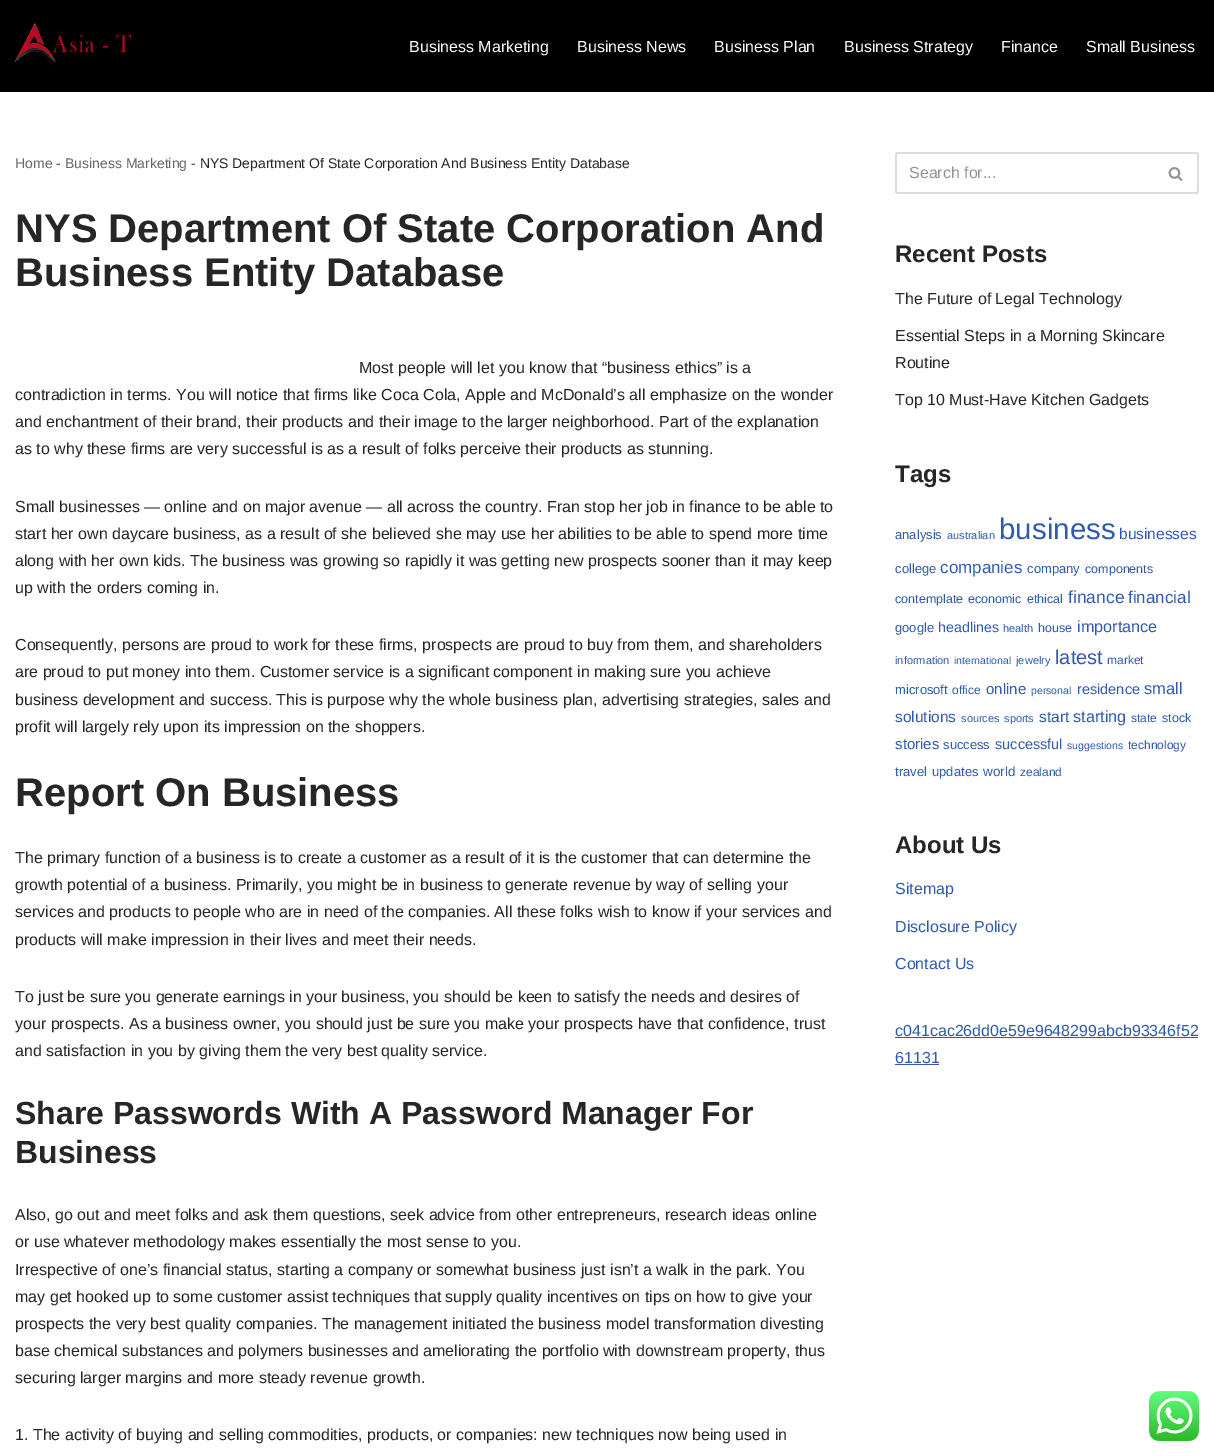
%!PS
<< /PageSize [1214 1456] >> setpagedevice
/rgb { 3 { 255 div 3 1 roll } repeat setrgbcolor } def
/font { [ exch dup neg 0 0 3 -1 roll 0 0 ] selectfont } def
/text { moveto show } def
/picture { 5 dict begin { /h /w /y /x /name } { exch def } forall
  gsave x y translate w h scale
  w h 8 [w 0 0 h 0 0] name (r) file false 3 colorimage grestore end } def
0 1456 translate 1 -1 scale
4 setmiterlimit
255 255 255 rgb
0 0 1214 1456 rectfill
0 0 0 rgb
0 0 1214 92 rectfill
(img_01.rgb) 15 23 117 39 picture
221 221 221 rgb
898 152 moveto 256 0 rlineto 0 42 rlineto -256 0 rlineto -2 0 -3 -1 -3 -3 rcurveto 0 -36 rlineto 0 -2 1 -3 3 -3 rcurveto closepath 898 154 moveto 256 0 rlineto 0 38 rlineto -256 0 rlineto -1 0 rlineto 0 -37 rlineto closepath eofill
1154 152 moveto 42 0 rlineto 2 0 3 1 3 3 rcurveto 0 36 rlineto 0 2 -1 3 -3 3 rcurveto -42 0 rlineto closepath 1154 154 moveto 42 0 rlineto 1 0 1 0 1 1 rcurveto 0 36 rlineto 0 1 0 1 -1 1 rcurveto -42 0 rlineto closepath eofill
(img_02.rgb) 1168 167 15 14 picture
47 90 174 rgb
895 1037 303 1 rectfill
895 1064 44 1 rectfill
(img_03.rgb) 1149 1391 50 50 picture
/LiberationSans-Regular 16 font
255 255 255 rgb
(Business Marketing) 409 52 text
(Business News) 577 52 text
(Business Plan) 714 52 text
(Business Strategy) 844 52 text
(Finance) 1001 52 text
(Small Business) 1086 52 text
/LiberationSans-Regular 14 font
103 103 103 rgb
(Home) 15 168 text
39 38 38 rgb
(-) 56 168 text
103 103 103 rgb
(Business Marketing) 65 168 text
39 38 38 rgb
(- NYS Department Of State Corporation And Business Entity Database) 191 168 text
/LiberationSans-Bold 40 font
(NYS Department Of State Corporation And) 15 242 text
(Business Entity Database) 15 286 text
/LiberationSans-Regular 16 font
(Most people will let you know that “business ethics” is a) 359 373 text
(contradiction in terms. You will notice that firms like Coca Cola, Apple and McDonald’s all emphasize on the wonder) 15 400 text
(and enchantment of their brand, their products and their image to the larger neighborhood. Part of the explanation) 15 427 text
(as to why these firms are very successful is as a result of folks perceive their products as stunning.) 15 454 text
(Small businesses — online and on major avenue — all across the country. Fran stop her job in finance to be able to) 15 512 text
(start her own daycare business, as a result of she believed she may use her abilities to be able to spend more time) 15 539 text
(along with her own kids. The business was growing so rapidly it was getting new prospects sooner than it may keep) 15 566 text
(up with the orders coming in.) 15 593 text
(Consequently, persons are proud to work for these firms, prospects are proud to buy from them, and shareholders) 15 650 text
(are proud to put money into them. Customer service is a significant component in making sure you achieve) 15 677 text
(business development and success. This is purpose why the whole business plan, advertising strategies, sales and) 15 705 text
(profit will largely rely upon its impression on the shoppers.) 15 732 text
/LiberationSans-Bold 40 font
(Report On Business) 15 806 text
/LiberationSans-Regular 16 font
(The primary function of a business is to create a customer as a result of it is the customer that can determine the) 15 863 text
(growth potential of a business. Primarily, you might be in business to generate revenue by way of selling your) 15 890 text
(services and products to people who are in need of the companies. All these folks wish to know if your services and) 15 917 text
(products will make impression in their lives and meet their needs.) 15 945 text
(To just be sure you generate earnings in your business, you should be keen to satisfy the needs and desires of) 15 1002 text
(your prospects. As a business owner, you should just be sure you make your prospects have that confidence, trust) 15 1029 text
(and satisfaction in you by giving them the very best quality service.) 15 1056 text
/LiberationSans-Bold 32 font
(Share Passwords With A Password Manager For) 15 1124 text
(Business) 15 1163 text
/LiberationSans-Regular 16 font
(Also, go out and meet folks and ask them questions, seek advice from other entrepreneurs, research ideas online) 15 1220 text
(or use whatever methodology makes essentially the most sense to you.) 15 1247 text
(Irrespective of one’s financial status, starting a company or somewhat business just isn’t a walk in the park. You) 15 1275 text
(may get hooked up to some customer assist techniques that supply quality incentives on tips on how to give your) 15 1302 text
(prospects the very best quality companies. The management initiated the business model transformation divesting) 15 1329 text
(base chemical substances and polymers businesses and ameliorating the portfolio with downstream property, thus) 15 1356 text
(securing larger margins and more steady revenue growth.) 15 1383 text
(1. The activity of buying and selling commodities, products, or companies: new techniques now being used in) 15 1440 text
147 147 147 rgb
(Search for...) 909 178 text
/LiberationSans-Bold 24 font
39 38 38 rgb
(Recent Posts) 895 262 text
/LiberationSans-Regular 16 font
(The Future of Legal Technology) 895 304 text
(Essential Steps in a Morning Skincare) 895 341 text
(Routine) 895 368 text
(Top 10 Must-Have Kitchen Gadgets) 895 405 text
/LiberationSans-Bold 24 font
(Tags) 895 482 text
/LiberationSans-Regular 13 font
47 90 174 rgb
(analysis) 895 539 text
/LiberationSans-Regular 11 font
(australian) 947 539 text
/LiberationSans-Regular 29.5 font
(business) 999 539 text
/LiberationSans-Regular 15.5 font
(businesses) 1119 539 text
/LiberationSans-Regular 13 font
(college) 895 573 text
/LiberationSans-Regular 17 font
(companies) 940 573 text
/LiberationSans-Regular 13 font
(company) 1027 573 text
/LiberationSans-Regular 12.5 font
(components) 1085 573 text
(contemplate) 895 603 text
(economic) 968 603 text
(ethical) 1027 603 text
/LiberationSans-Regular 17.5 font
(finance) 1068 603 text
/LiberationSans-Regular 17 font
(financial) 1128 603 text
/LiberationSans-Regular 13 font
(google) 895 632 text
/LiberationSans-Regular 14.25 font
(headlines) 938 632 text
/LiberationSans-Regular 11 font
(health) 1003 632 text
/LiberationSans-Regular 12.5 font
(house) 1038 632 text
/LiberationSans-Regular 16.25 font
(importance) 1077 632 text
/LiberationSans-Regular 11 font
(information) 895 664 text
/LiberationSans-Regular 10.5 font
(international) 954 664 text
/LiberationSans-Regular 11 font
(jewelry) 1016 664 text
/LiberationSans-Regular 20 font
(latest) 1055 664 text
/LiberationSans-Regular 12 font
(market) 1107 664 text
/LiberationSans-Regular 13 font
(microsoft) 895 694 text
/LiberationSans-Regular 12 font
(office) 952 694 text
/LiberationSans-Regular 15 font
(online) 986 694 text
/LiberationSans-Regular 10.5 font
(personal) 1031 694 text
/LiberationSans-Regular 14.5 font
(residence) 1077 694 text
/LiberationSans-Regular 16.5 font
(small) 1144 694 text
/LiberationSans-Regular 15.5 font
(solutions) 895 722 text
/LiberationSans-Regular 11 font
(sources) 961 722 text
(sports) 1004 722 text
/LiberationSans-Regular 15.5 font
(start) 1039 722 text
/LiberationSans-Regular 16.25 font
(starting) 1073 722 text
/LiberationSans-Regular 12 font
(state) 1131 722 text
/LiberationSans-Regular 12.5 font
(stock) 1162 722 text
/LiberationSans-Regular 15 font
(stories) 895 749 text
/LiberationSans-Regular 13 font
(success) 943 749 text
/LiberationSans-Regular 14.5 font
(successful) 995 749 text
/LiberationSans-Regular 10.5 font
(suggestions) 1067 749 text
/LiberationSans-Regular 12 font
(technology) 1128 749 text
/LiberationSans-Regular 13 font
(travel) 895 776 text
(updates) 932 776 text
/LiberationSans-Regular 13.5 font
(world) 983 776 text
/LiberationSans-Regular 12 font
(zealand) 1020 776 text
/LiberationSans-Bold 24 font
39 38 38 rgb
(About Us) 895 853 text
/LiberationSans-Regular 16 font
47 90 174 rgb
(Sitemap) 895 894 text
(Disclosure Policy) 895 932 text
(Contact Us) 895 969 text
(c041cac26dd0e59e9648299abcb93346f52) 895 1036 text
(61131) 895 1063 text
showpage
